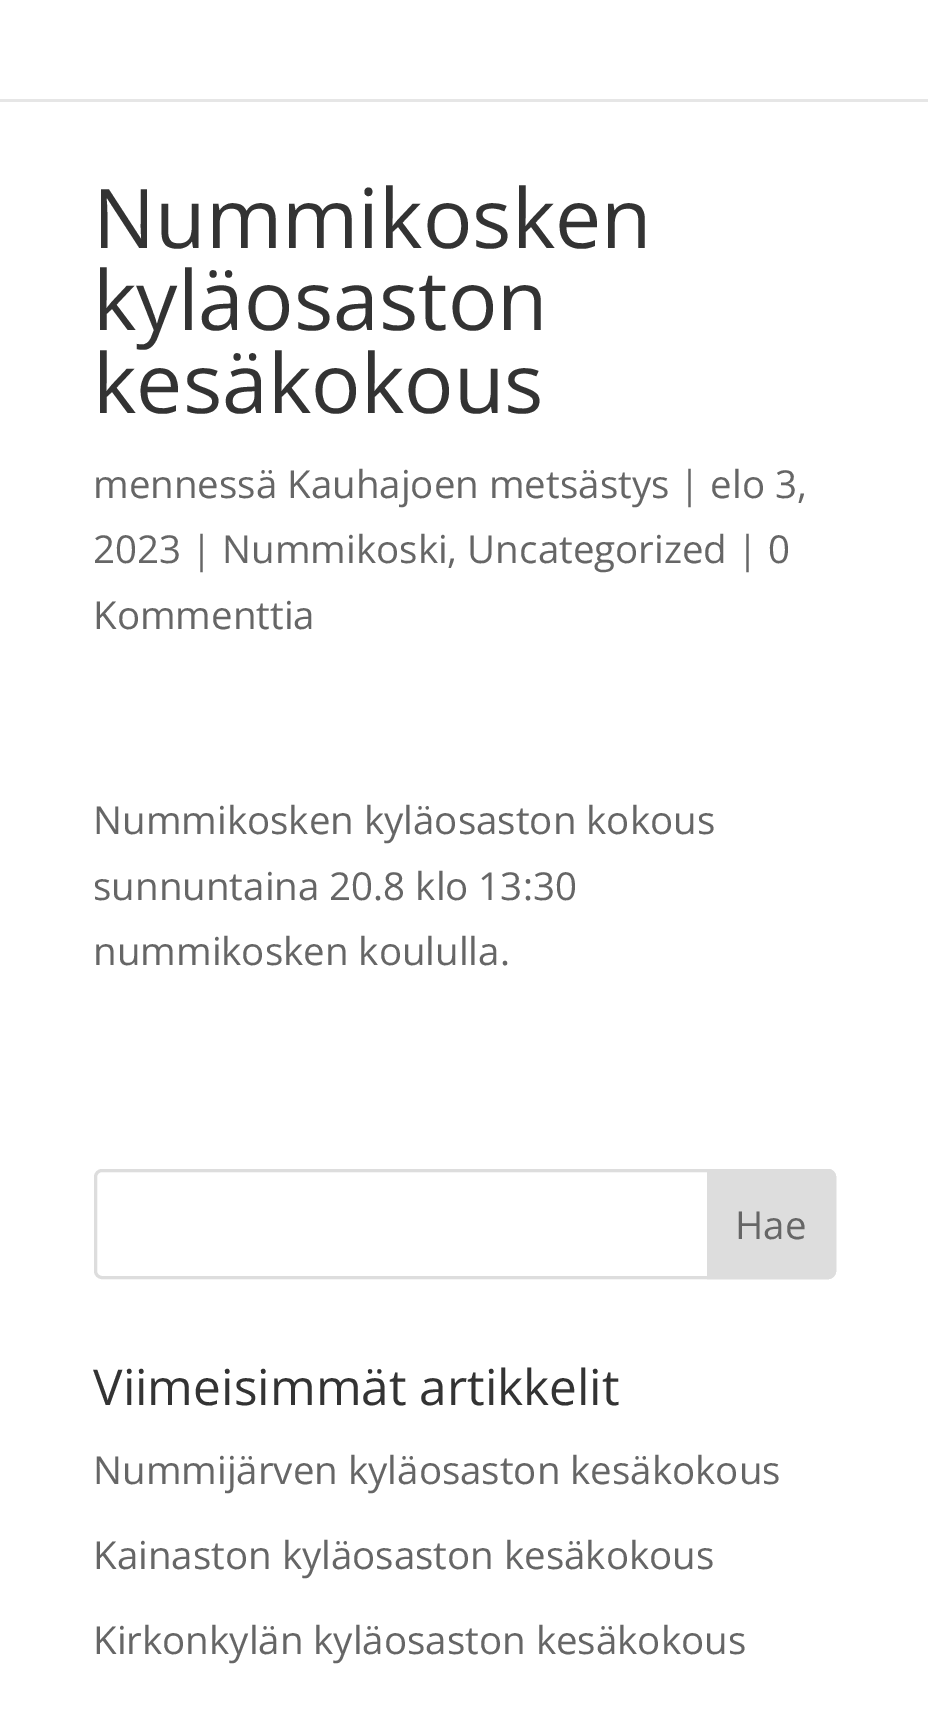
%!PS
<< /PageSize [928 1723] >> setpagedevice
/rgb { 3 { 255 div 3 1 roll } repeat setrgbcolor } def
/font { [ exch dup neg 0 0 3 -1 roll 0 0 ] selectfont } def
/text { moveto show } def
/roundrect { 5 dict begin { /r /h /w /y /x } { exch def } forall
  x r add y moveto x w add y 2 copy h add r arct x w add y h add x 1 index r arct
  x y h add x y r arct x y 2 copy exch w add exch r arct closepath end } def
0 1723 translate 1 -1 scale
4 setmiterlimit
255 255 255 rgb
0 0 928 1723 rectfill
230 230 230 rgb
0 99 moveto 0 3 rlineto 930 0 rlineto 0 -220 rlineto 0 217 rlineto closepath fill
221 221 221 rgb
3 setlinewidth
95.5 1170.5 739 107 6.5 roundrect stroke
708.5 1170.5 moveto 119.5 0 rlineto 3.5 0 6.5 3 6.5 6.5 rcurveto 0 94 rlineto 0 3.5 -3 6.5 -6.5 6.5 rcurveto -119.5 0 rlineto closepath gsave fill grestore
stroke
/OpenSans-Regular 82.5 font
51 51 51 rgb
(Nummikosken) 93 248 text
(kyläosaston) 93 330 text
(kesäkokous) 93 413 text
/OpenSans-Regular 38.5 font
102 102 102 rgb
(mennessä Kauhajoen metsästys | elo 3,) 93 498 text
(2023 | Nummikoski, Uncategorized | 0) 93 563 text
(Kommenttia) 93 629 text
(Nummikosken kyläosaston kokous) 93 834 text
(sunnuntaina 20.8 klo 13:30) 93 900 text
(nummikosken koululla.) 93 965 text
(Hae) 735 1239 text
/OpenSans-Regular 49.5 font
51 51 51 rgb
(Viimeisimmät artikkelit) 93 1405 text
/OpenSans-Regular 38.5 font
102 102 102 rgb
(Nummijärven kyläosaston kesäkokous) 93 1484 text
(Kainaston kyläosaston kesäkokous) 93 1569 text
(Kirkonkylän kyläosaston kesäkokous) 93 1654 text
showpage
